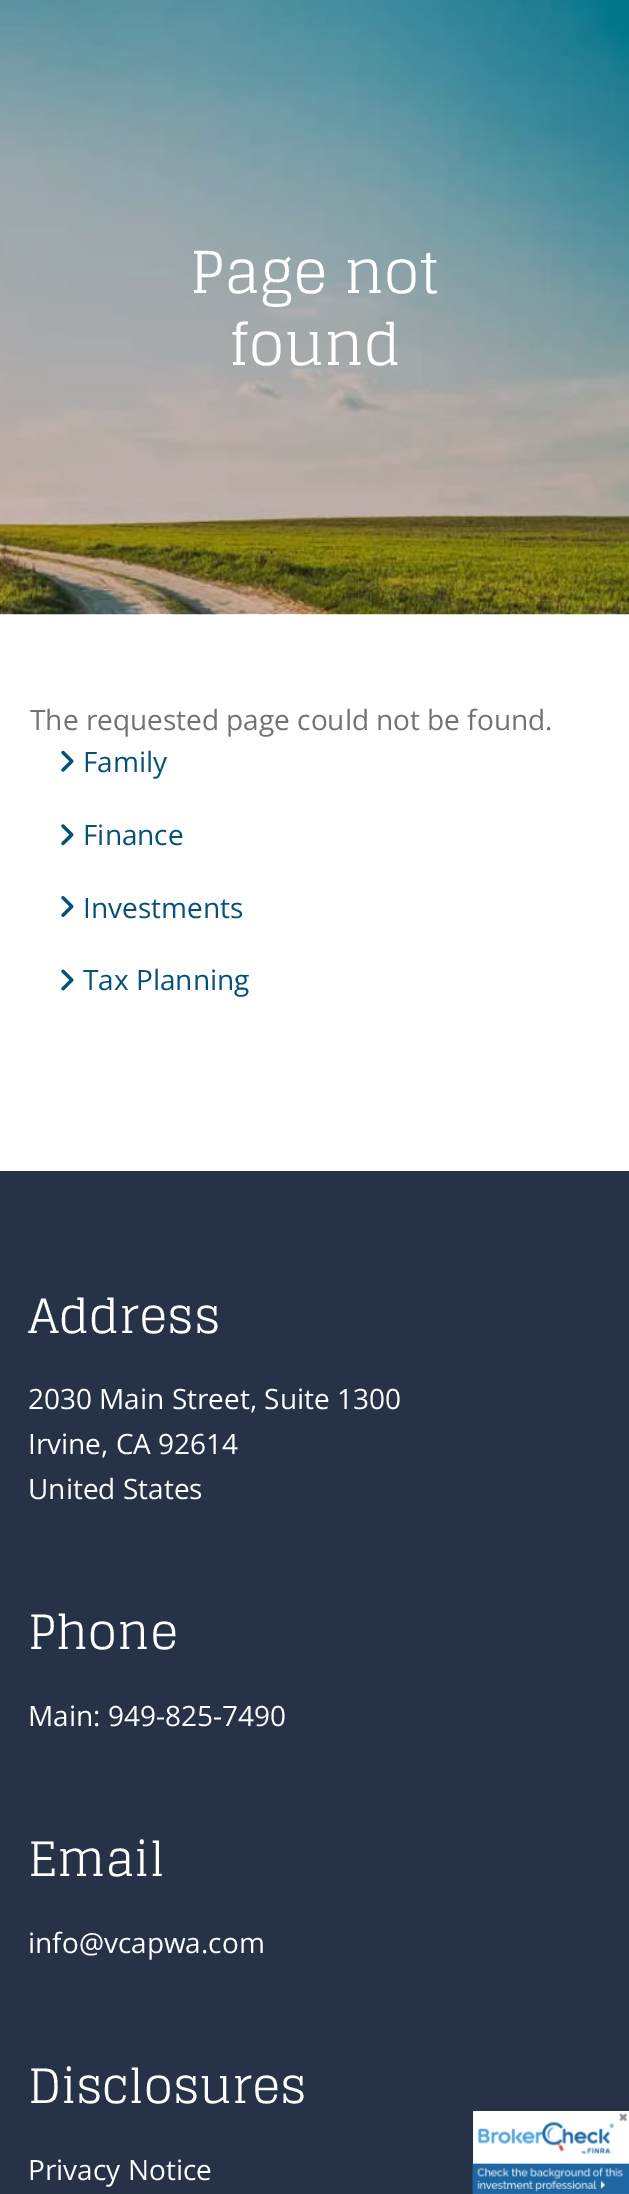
%!PS
<< /PageSize [629 2194] >> setpagedevice
/rgb { 3 { 255 div 3 1 roll } repeat setrgbcolor } def
/font { [ exch dup neg 0 0 3 -1 roll 0 0 ] selectfont } def
/text { moveto show } def
/picture { 5 dict begin { /h /w /y /x /name } { exch def } forall
  gsave x y translate w h scale
  w h 8 [w 0 0 h 0 0] name (r) file false 3 colorimage grestore end } def
0 2194 translate 1 -1 scale
4 setmiterlimit
255 255 255 rgb
0 0 629 2194 rectfill
(img_01.rgb) 0 0 629 615 picture
(img_02.rgb) 61 750 13 22 picture
(img_03.rgb) 61 824 13 22 picture
(img_04.rgb) 61 896 13 21 picture
(img_05.rgb) 61 969 13 22 picture
38 50 72 rgb
0 1171 629 1023 rectfill
255 255 255 rgb
473 2111 156 83 rectfill
(img_06.rgb) 472 2112 157 82 picture
/Glegoo-Regular 57.75 font
(Page not) 190 293 text
(found) 229 365 text
/OpenSans-Regular 28 font
114 114 114 rgb
(The requested page could not be found.) 30 730 text
7 80 119 rgb
(Family) 83 772 text
(Finance) 83 845 text
(Investments) 83 918 text
(Tax Planning) 83 990 text
/Glegoo-Regular 47.25 font
255 255 255 rgb
(Address) 28 1333 text
/OpenSans-Regular 28 font
(2030 Main Street, Suite 1300) 28 1409 text
(Irvine, CA 92614) 28 1454 text
(United States) 28 1499 text
/Glegoo-Regular 47.25 font
(Phone) 28 1649 text
/OpenSans-Regular 28 font
(Main: 949-825-7490) 28 1726 text
/Glegoo-Regular 47.25 font
(Email) 28 1876 text
/OpenSans-Regular 28 font
(info@vcapwa.com) 28 1953 text
/Glegoo-Regular 47.25 font
(Disclosures) 28 2103 text
/OpenSans-Regular 28 font
(Privacy Notice) 28 2180 text
showpage
